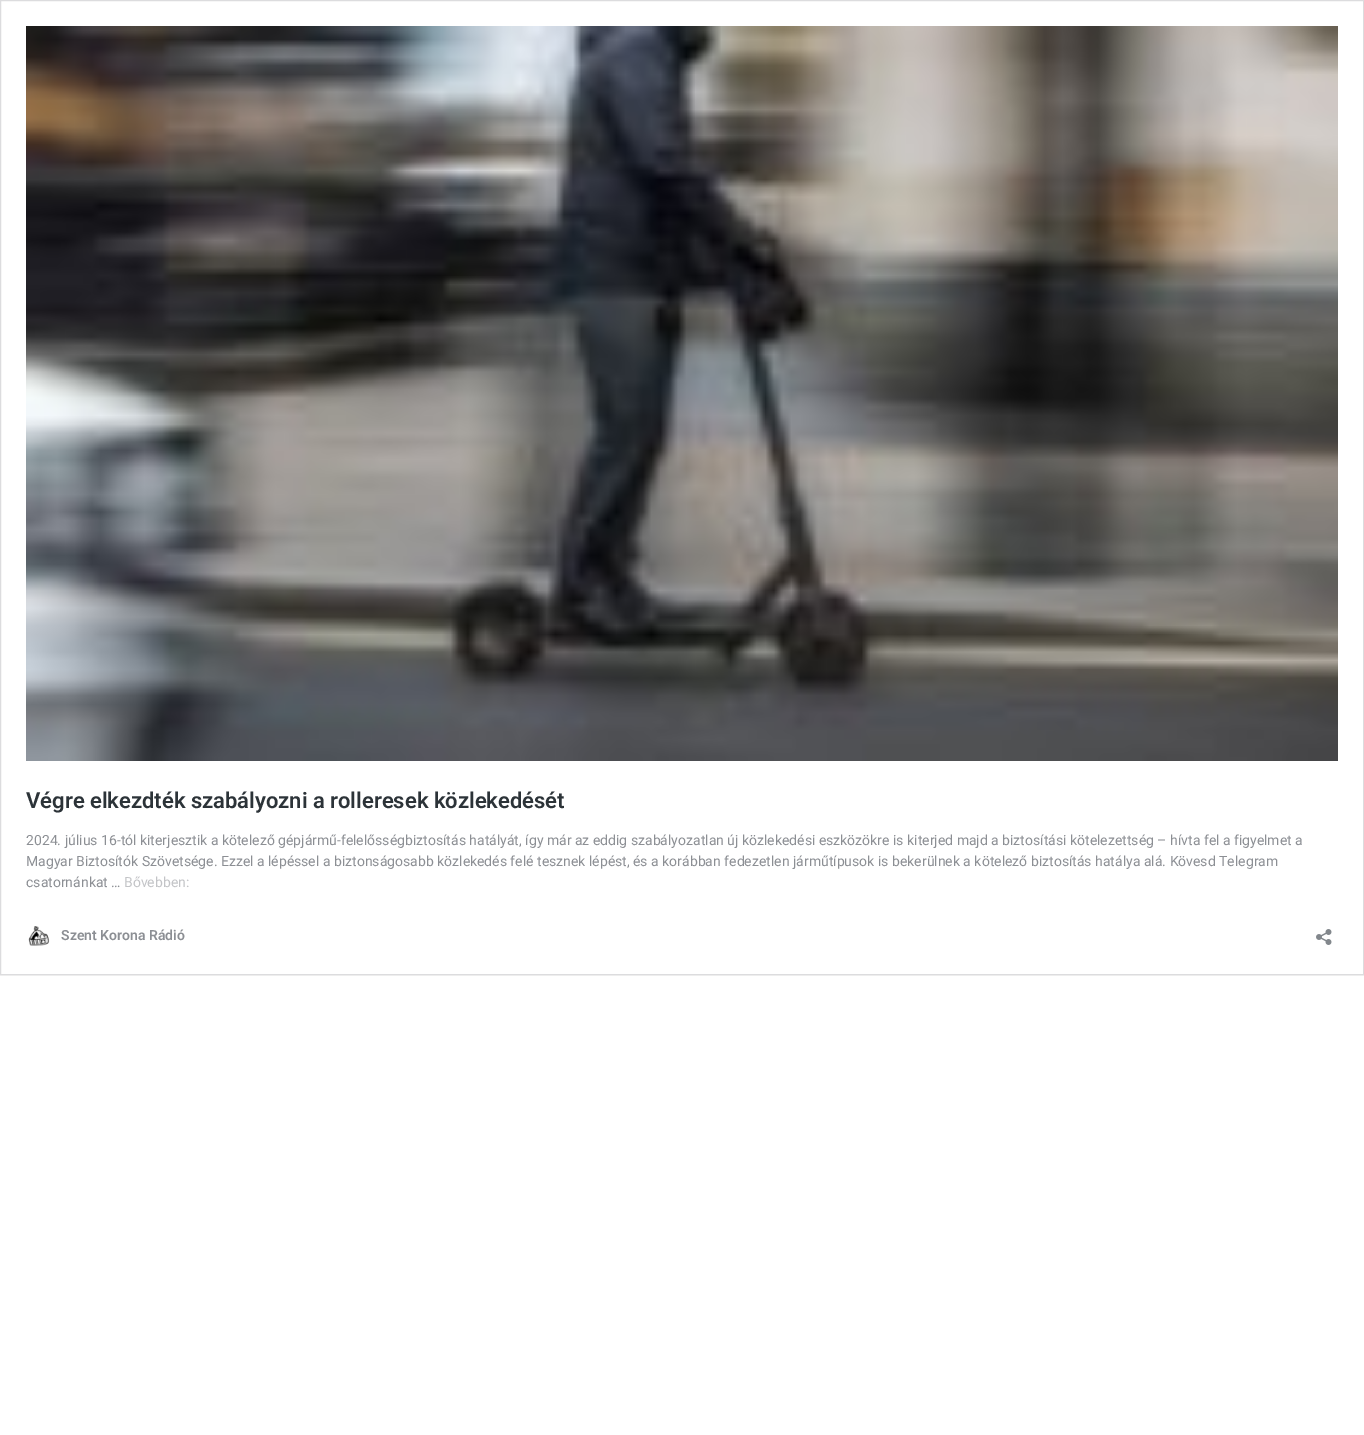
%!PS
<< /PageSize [1364 1435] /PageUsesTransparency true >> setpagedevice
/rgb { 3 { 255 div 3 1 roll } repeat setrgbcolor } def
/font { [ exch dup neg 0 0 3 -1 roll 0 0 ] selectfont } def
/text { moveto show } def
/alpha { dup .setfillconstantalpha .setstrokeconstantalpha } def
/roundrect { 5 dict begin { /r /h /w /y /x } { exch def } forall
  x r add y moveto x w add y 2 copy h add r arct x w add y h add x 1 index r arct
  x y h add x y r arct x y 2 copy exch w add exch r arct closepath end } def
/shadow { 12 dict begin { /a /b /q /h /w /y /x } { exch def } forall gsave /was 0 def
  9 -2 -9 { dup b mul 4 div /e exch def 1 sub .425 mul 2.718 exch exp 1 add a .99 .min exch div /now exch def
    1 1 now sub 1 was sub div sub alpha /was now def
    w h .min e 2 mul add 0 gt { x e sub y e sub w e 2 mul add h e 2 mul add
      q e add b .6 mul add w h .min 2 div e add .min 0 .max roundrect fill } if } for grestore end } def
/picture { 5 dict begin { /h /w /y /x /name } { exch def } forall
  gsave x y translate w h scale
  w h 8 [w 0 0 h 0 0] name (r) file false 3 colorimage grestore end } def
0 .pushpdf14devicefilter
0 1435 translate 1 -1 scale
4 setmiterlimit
255 255 255 rgb
0 0 1364 1435 rectfill
gsave
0 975 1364 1 rectclip
0 0 0 rgb
0 1 1364 975 0 0.5 0.05 shadow
grestore
220 220 222 rgb
0.5 0.5 1363 974 rectstroke
(img_01.rgb) 26 26 1312 735 picture
(img_02.rgb) 28 926 22 20 picture
(img_03.rgb) 1316 929 16 16 picture
/Roboto-SemiBold 22 font
44 51 56 rgb
(Végre elkezdték szabályozni a rolleresek közlekedését) 26 808 text
/Roboto-Regular 14 font
140 143 148 rgb
(2024. július 16-tól kiterjesztik a kötelező gépjármű-felelősségbiztosítás hatályát, így már az eddig szabályozatlan új közlekedési eszközökre is kiterjed majd a biztosítási kötelezettség – hívta fel a figyelmet a) 26 845 text
(Magyar Biztosítók Szövetsége. Ezzel a lépéssel a biztonságosabb közlekedés felé tesznek lépést, és a korábban fedezetlen járműtípusok is bekerülnek a kötelező biztosítás hatálya alá. Kövesd Telegram) 26 866 text
(csatornánkat …) 26 887 text
195 196 199 rgb
(Bővebben:) 124 887 text
/Roboto-SemiBold 14 font
140 143 148 rgb
(Szent Korona Rádió) 61 940 text
.poppdf14devicefilter showpage
